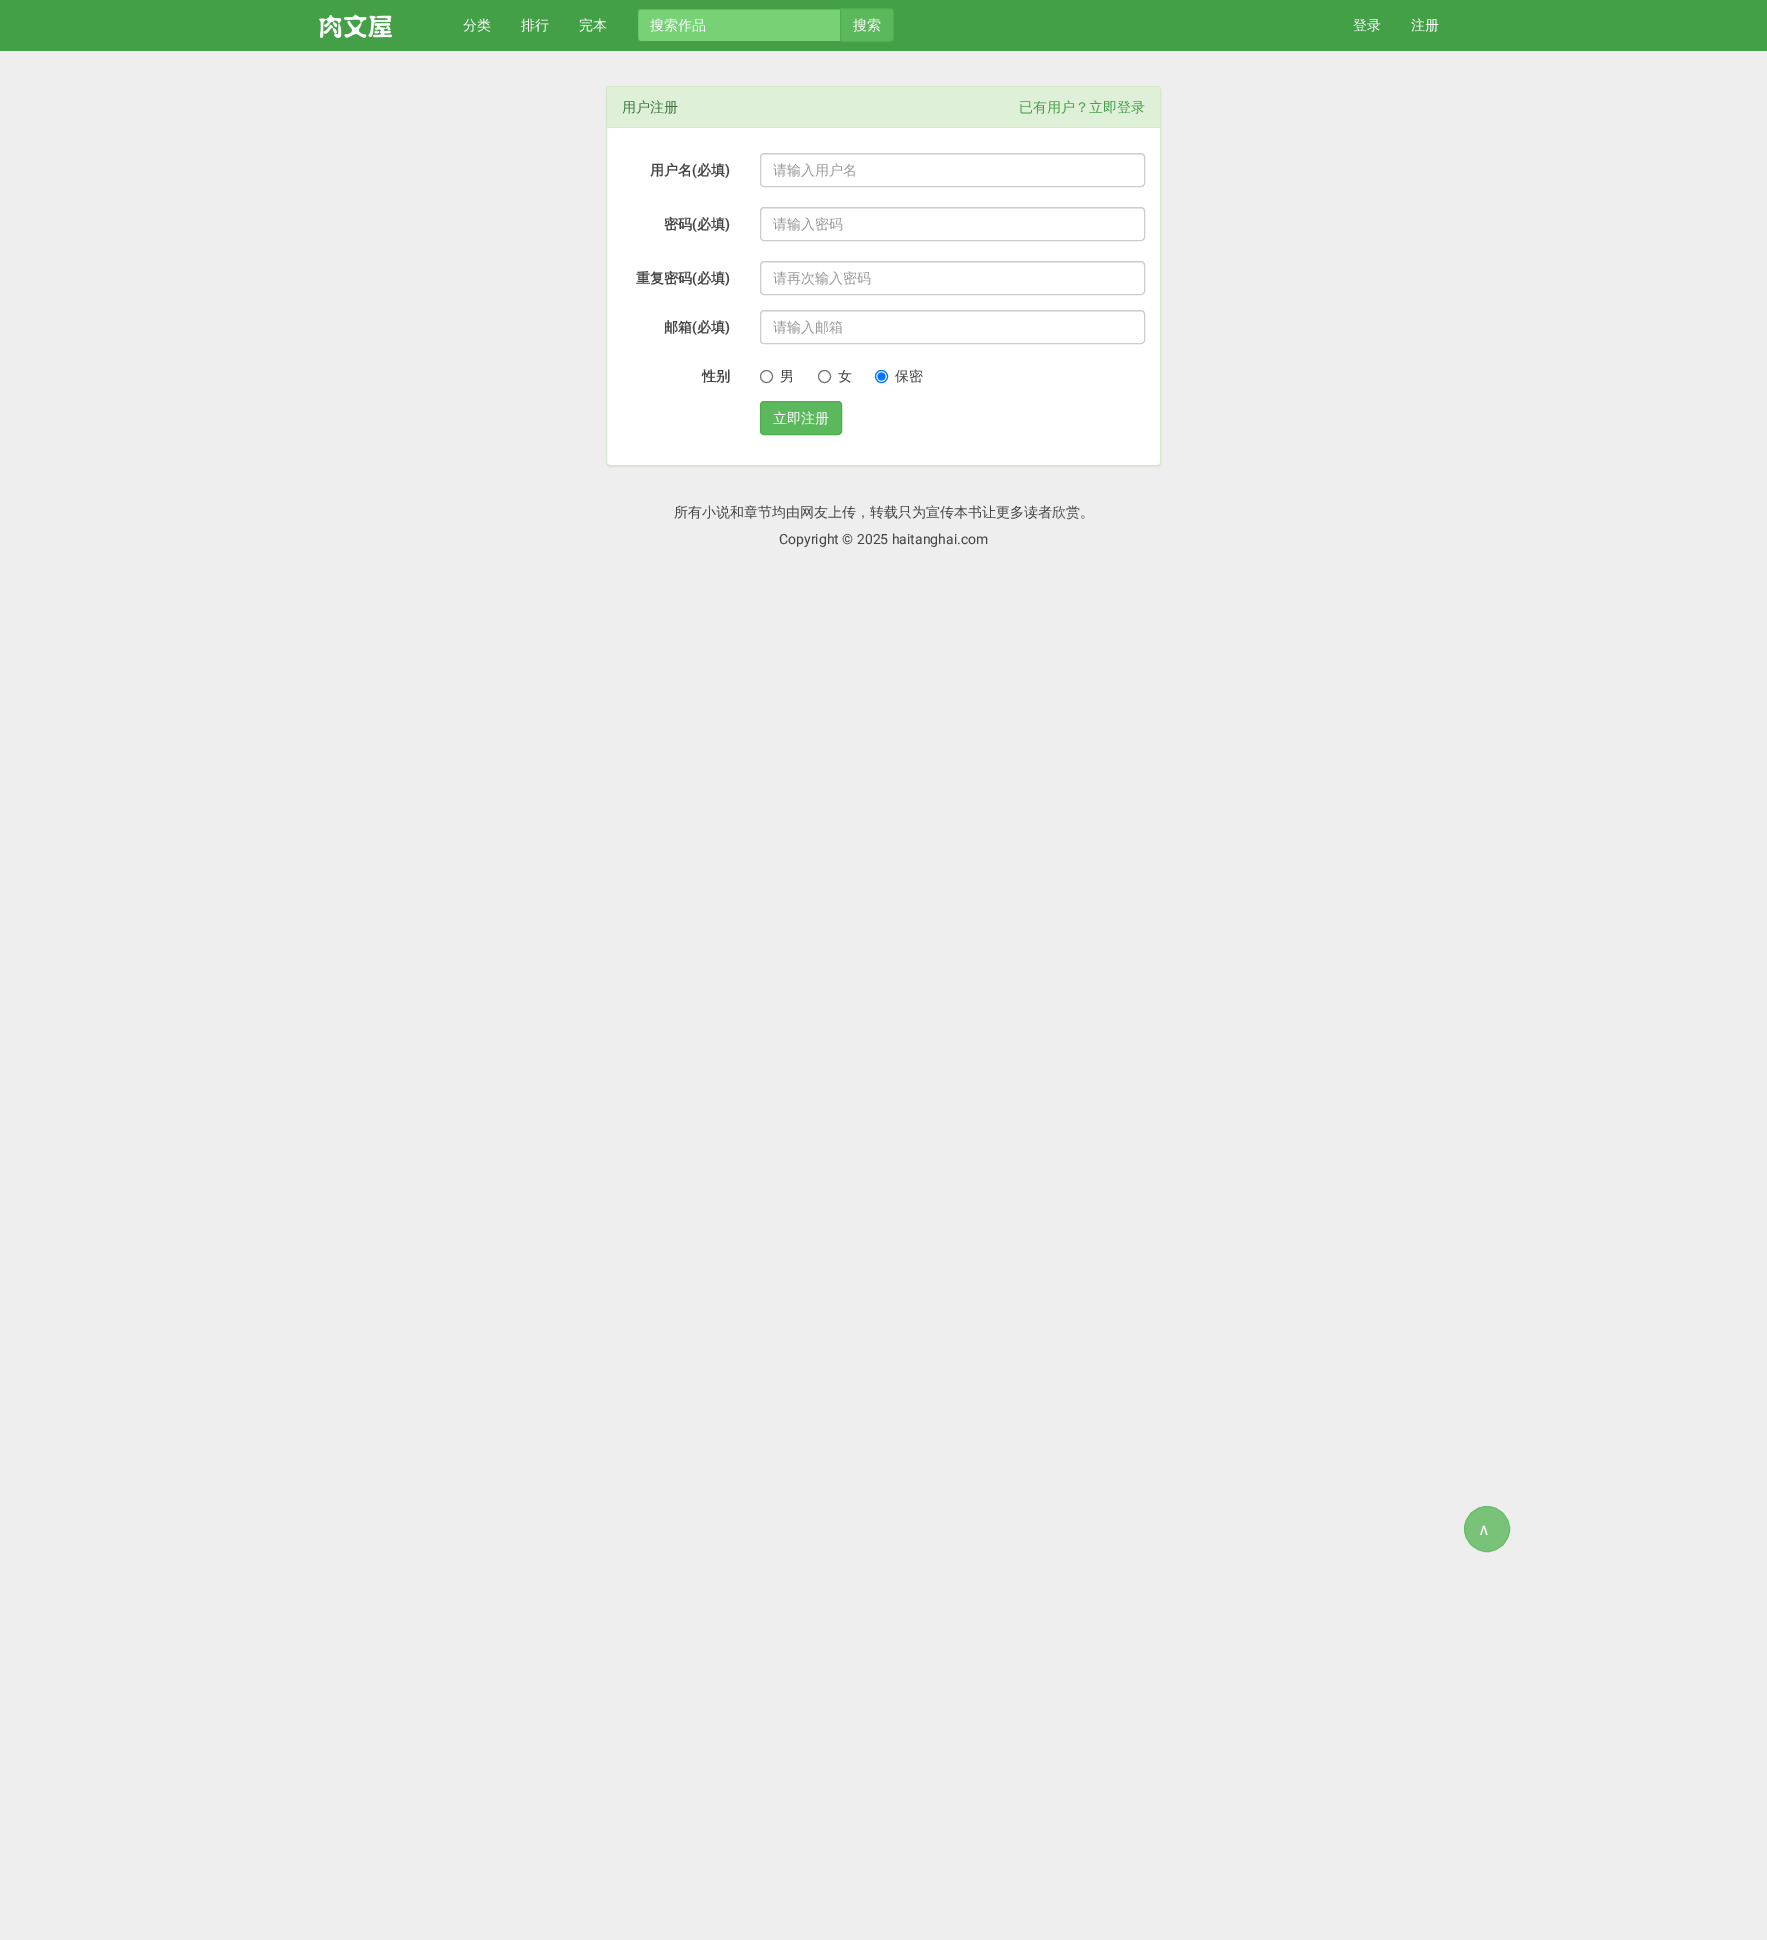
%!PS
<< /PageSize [1767 1940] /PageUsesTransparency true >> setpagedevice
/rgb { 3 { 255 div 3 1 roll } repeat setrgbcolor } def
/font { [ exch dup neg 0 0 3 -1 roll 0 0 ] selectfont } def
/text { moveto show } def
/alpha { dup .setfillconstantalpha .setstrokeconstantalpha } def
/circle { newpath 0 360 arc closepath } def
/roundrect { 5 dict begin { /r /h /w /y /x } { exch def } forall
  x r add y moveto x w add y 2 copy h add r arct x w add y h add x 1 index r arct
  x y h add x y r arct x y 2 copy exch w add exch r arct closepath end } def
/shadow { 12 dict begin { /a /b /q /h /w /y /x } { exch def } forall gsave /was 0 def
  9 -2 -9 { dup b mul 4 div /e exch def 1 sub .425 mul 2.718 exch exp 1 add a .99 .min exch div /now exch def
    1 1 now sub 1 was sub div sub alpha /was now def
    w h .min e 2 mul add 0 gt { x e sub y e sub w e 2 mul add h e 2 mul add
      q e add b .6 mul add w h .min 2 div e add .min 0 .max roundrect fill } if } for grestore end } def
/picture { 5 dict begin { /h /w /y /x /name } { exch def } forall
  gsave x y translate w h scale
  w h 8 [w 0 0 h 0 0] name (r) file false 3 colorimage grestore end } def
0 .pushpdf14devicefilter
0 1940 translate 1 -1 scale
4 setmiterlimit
238 238 238 rgb
0 0 1767 1940 rectfill
67 160 71 rgb
0 0 1767 51 rectfill
(img_01.rgb) 319 14 73 25 picture
118 210 117 rgb
641 8 moveto 200 0 rlineto 0 34 rlineto -200 0 rlineto -2 0 -4 -2 -4 -4 rcurveto 0 -26 rlineto 0 -2 2 -4 4 -4 rcurveto closepath fill
109 194 108 rgb
641 10 moveto 199 0 rlineto 0 -1 rlineto -199 0 rlineto -2 0 -3 2 -3 4 rcurveto 0 -2 1 -3 3 -3 rcurveto closepath fill
67 160 71 rgb
641 8.5 moveto 199.5 0 rlineto 0 33 rlineto -199.5 0 rlineto -2 0 -3.5 -1.5 -3.5 -3.5 rcurveto 0 -26 rlineto 0 -2 1.5 -3.5 3.5 -3.5 rcurveto closepath stroke
92 184 92 rgb
840.5 8.5 moveto 49.5 0 rlineto 2 0 3.5 1.5 3.5 3.5 rcurveto 0 26 rlineto 0 2 -1.5 3.5 -3.5 3.5 rcurveto -49.5 0 rlineto closepath gsave fill grestore
76 174 76 rgb
stroke
0 0 0 rgb
606 87 555 380 4 0.5 0.05 shadow
255 255 255 rgb
606.5 86.5 554 379 3.5 roundrect gsave fill grestore
214 233 198 rgb
stroke
223 240 216 rgb
610 87 moveto 547 0 rlineto 1.5 0 3 1.5 3 3 rcurveto 0 38 rlineto -553 0 rlineto 0 -38 rlineto 0 -1.5 1.5 -3 3 -3 rcurveto closepath fill
214 233 198 rgb
607 127 553 1 rectfill
236 236 236 rgb
764 155 moveto 377 0 rlineto 2 0 3 1 3 3 rcurveto 0 -2 -1 -4 -3 -4 rcurveto -377 0 rlineto -2 1 rlineto -1 3 rlineto 0 -2 1 -3 3 -3 rcurveto closepath fill
204 204 204 rgb
760.5 153.5 384 33 3.5 roundrect stroke
236 236 236 rgb
764 209 moveto 377 0 rlineto 2 0 3 1 3 3 rcurveto 0 -2 -1 -4 -3 -4 rcurveto -377 0 rlineto -2 1 rlineto -1 3 rlineto 0 -2 1 -3 3 -3 rcurveto closepath fill
204 204 204 rgb
760.5 207.5 384 33 3.5 roundrect stroke
236 236 236 rgb
764 263 moveto 377 0 rlineto 2 0 3 1 3 3 rcurveto 0 -2 -1 -4 -3 -4 rcurveto -377 0 rlineto -2 1 rlineto -1 3 rlineto 0 -2 1 -3 3 -3 rcurveto closepath fill
204 204 204 rgb
760.5 261.5 384 33 3.5 roundrect stroke
236 236 236 rgb
764 312 moveto 377 0 rlineto 2 0 3 1 3 3 rcurveto 0 -2 -1 -4 -3 -4 rcurveto -377 0 rlineto -2 1 rlineto -1 3 rlineto 0 -2 1 -3 3 -3 rcurveto closepath fill
204 204 204 rgb
760.5 310.5 384 33 3.5 roundrect stroke
118 118 118 rgb
766.5 376.5 6 circle stroke
824.5 376.5 6 circle stroke
0 117 255 rgb
881.5 376.5 6 circle stroke
881.5 376.5 4 circle fill
92 184 92 rgb
760.5 401.5 81 33 3.5 roundrect gsave fill grestore
76 174 76 rgb
stroke
121 195 121 rgb
1487 1529 22.5 circle gsave fill grestore
108 187 108 rgb
stroke
/WenQuanYiZenHei-Medium 14 font
255 255 255 rgb
(分类) 463 30 text
(排行) 521 30 text
(完本) 579 30 text
(搜索作品) 650 30 text
(搜索) 853 30 text
(登录) 1353 30 text
(注册) 1411 30 text
60 118 61 rgb
(用户注册) 622 112 text
67 160 71 rgb
(已有用户？立即登录) 1019 112 text
/WenQuanYiZenHei-Bold 14 font
68 68 68 rgb
(用户名) 650 175 text
/Roboto-Bold 14 font
(\() 692 175 text
/WenQuanYiZenHei-Bold 14 font
(必填) 697 175 text
/Roboto-Bold 14 font
(\)) 725 175 text
/WenQuanYiZenHei-Medium 14 font
153 153 153 rgb
(请输入用户名) 773 175 text
/WenQuanYiZenHei-Bold 14 font
68 68 68 rgb
(密码) 664 229 text
/Roboto-Bold 14 font
(\() 692 229 text
/WenQuanYiZenHei-Bold 14 font
(必填) 697 229 text
/Roboto-Bold 14 font
(\)) 725 229 text
/WenQuanYiZenHei-Medium 14 font
153 153 153 rgb
(请输入密码) 773 229 text
/WenQuanYiZenHei-Bold 14 font
68 68 68 rgb
(重复密码) 636 283 text
/Roboto-Bold 14 font
(\() 692 283 text
/WenQuanYiZenHei-Bold 14 font
(必填) 697 283 text
/Roboto-Bold 14 font
(\)) 725 283 text
/WenQuanYiZenHei-Medium 14 font
153 153 153 rgb
(请再次输入密码) 773 283 text
/WenQuanYiZenHei-Bold 14 font
68 68 68 rgb
(邮箱) 664 332 text
/Roboto-Bold 14 font
(\() 692 332 text
/WenQuanYiZenHei-Bold 14 font
(必填) 697 332 text
/Roboto-Bold 14 font
(\)) 725 332 text
/WenQuanYiZenHei-Medium 14 font
153 153 153 rgb
(请输入邮箱) 773 332 text
/WenQuanYiZenHei-Bold 14 font
68 68 68 rgb
(性别) 702 381 text
/WenQuanYiZenHei-Medium 14 font
(男) 780 381 text
(女) 838 381 text
(保密) 895 381 text
255 255 255 rgb
(立即注册) 773 423 text
68 68 68 rgb
(所有小说和章节均由网友上传，转载只为宣传本书让更多读者欣赏。) 674 517 text
/Roboto-Regular 14 font
(Copyright © 2025 haitanghai.com) 779 544 text
/DejaVuSans-Regular 16 font
255 255 255 rgb
1478 1535 moveto 6 0 (∧) ashow
.poppdf14devicefilter showpage
